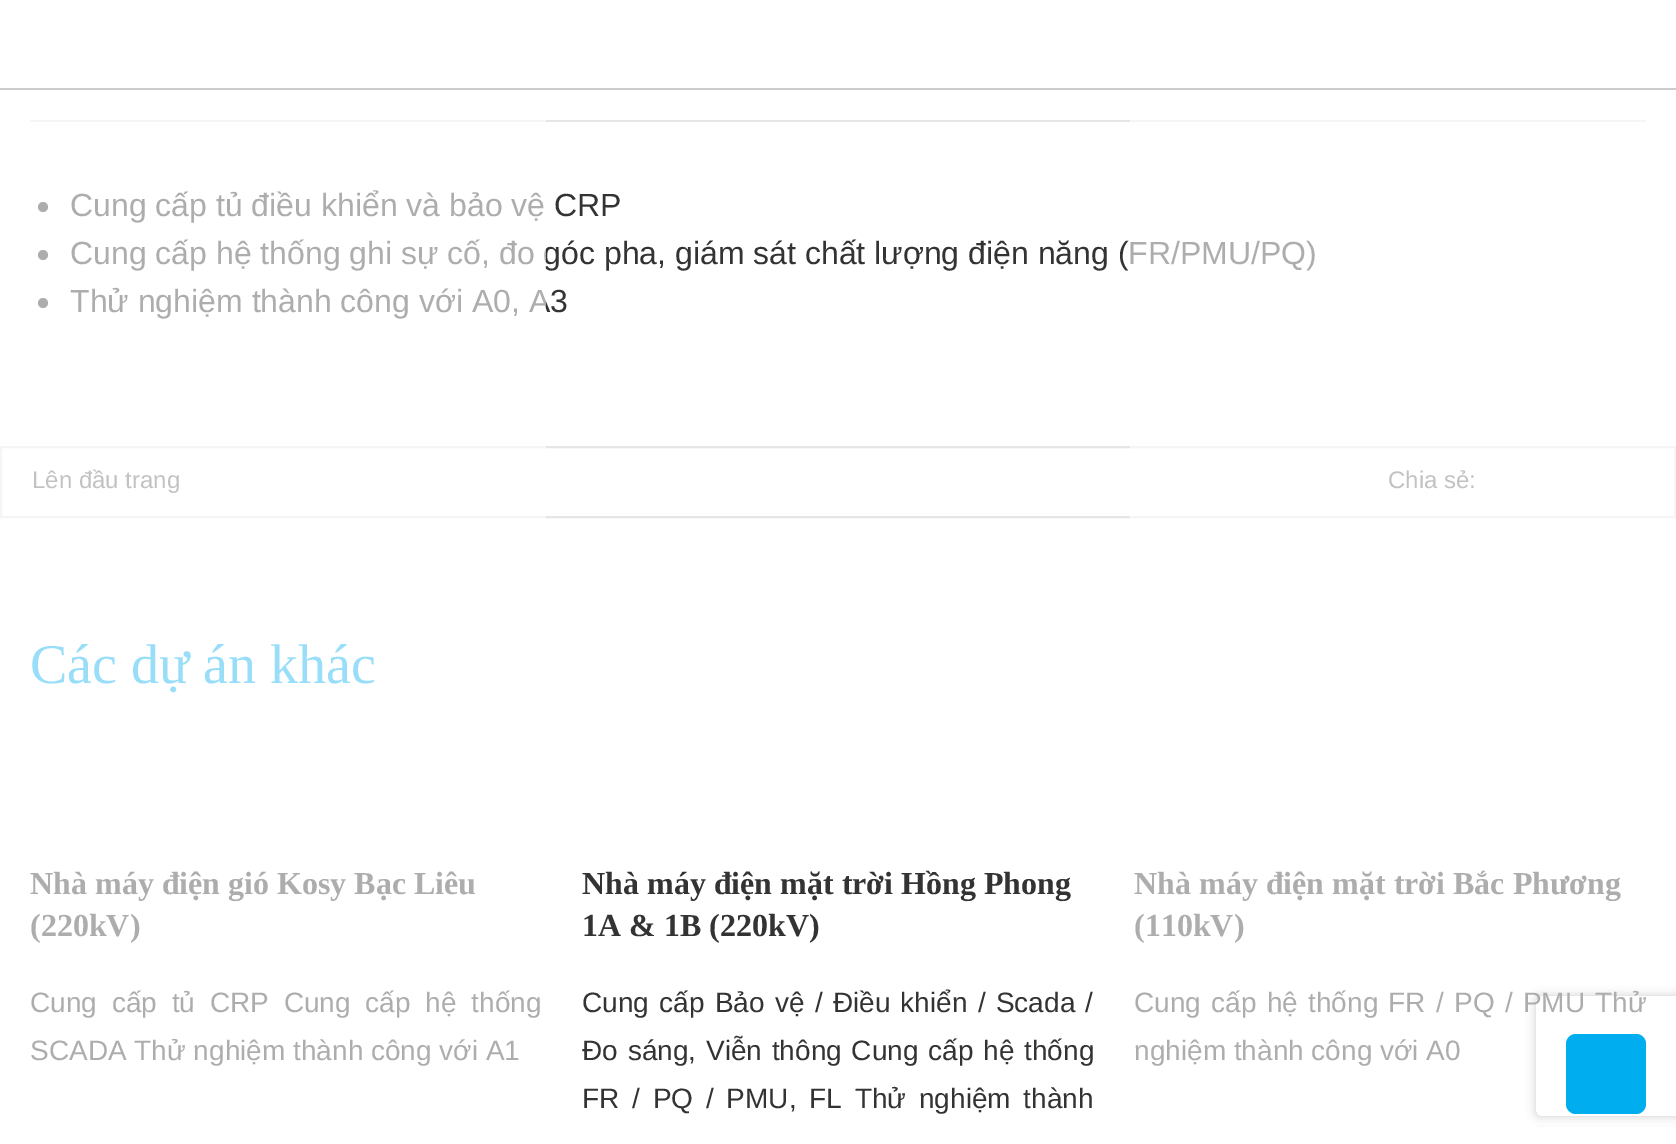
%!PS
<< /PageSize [1676 1144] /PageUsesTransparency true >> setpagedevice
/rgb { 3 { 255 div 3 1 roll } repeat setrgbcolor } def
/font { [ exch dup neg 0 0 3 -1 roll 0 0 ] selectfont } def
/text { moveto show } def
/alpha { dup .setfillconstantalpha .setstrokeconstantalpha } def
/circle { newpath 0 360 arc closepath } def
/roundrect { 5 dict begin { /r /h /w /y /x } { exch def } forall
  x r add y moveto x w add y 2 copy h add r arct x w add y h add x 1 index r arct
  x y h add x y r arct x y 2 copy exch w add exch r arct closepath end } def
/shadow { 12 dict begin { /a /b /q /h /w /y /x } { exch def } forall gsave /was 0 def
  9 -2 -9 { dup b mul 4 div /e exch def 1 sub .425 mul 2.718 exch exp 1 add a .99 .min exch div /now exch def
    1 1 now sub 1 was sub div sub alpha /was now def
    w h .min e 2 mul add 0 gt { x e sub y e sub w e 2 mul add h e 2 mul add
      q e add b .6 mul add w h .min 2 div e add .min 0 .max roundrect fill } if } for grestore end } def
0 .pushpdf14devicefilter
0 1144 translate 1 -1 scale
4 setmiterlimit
255 255 255 rgb
0 0 1676 1144 rectfill
204 204 204 rgb
0 88 1676 2 rectfill
229 229 229 rgb
30 120 1616 2 rectfill
51 51 51 rgb
43 207 5 circle fill
43 255 5 circle fill
43 303 5 circle fill
229 229 229 rgb
2 setlinewidth
1 447 1674 70 rectstroke
gsave
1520 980 moveto 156 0 rlineto 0 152 rlineto -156 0 rlineto closepath 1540 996 moveto 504 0 rlineto 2 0 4 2 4 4 rcurveto 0 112 rlineto 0 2 -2 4 -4 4 rcurveto -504 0 rlineto -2 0 -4 -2 -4 -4 rcurveto 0 -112 rlineto 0 -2 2 -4 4 -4 rcurveto closepath eoclip newpath
128 128 128 rgb
1536 996 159 120 4 5 1 shadow
grestore
/LiberationSans-Regular 32 font
51 51 51 rgb
(Cung cấp tủ điều khiển và bảo vệ CRP) 70 216 text
(Cung cấp hệ thống ghi sự cố, đo góc pha, giám sát chất lượng điện năng \(FR/PMU/PQ\)) 70 264 text
(Thử nghiệm thành công với A0, A3) 70 312 text
/LiberationSans-Regular 24 font
102 102 102 rgb
(Lên đầu trang) 32 488 text
(Chia sẻ:) 1388 488 text
/LiberationSerif-Regular 56 font
0 173 239 rgb
(Các dự án khác) 30 683 text
/LiberationSerif-Bold 32 font
51 51 51 rgb
(Nhà máy điện gió Kosy Bạc Liêu) 30 894 text
(\(220kV\)) 30 936 text
/LiberationSans-Regular 28 font
30 1012 moveto 7 0 32 (Cung cấp tủ CRP Cung cấp hệ thống) widthshow
(SCADA Thử nghiệm thành công với A1) 30 1060 text
0.6 alpha
255 255 255 rgb
0 120 546 946 rectfill
/LiberationSerif-Bold 32 font
1 alpha
51 51 51 rgb
(Nhà máy điện mặt trời Hồng Phong) 582 894 text
(1A & 1B \(220kV\)) 582 936 text
/LiberationSans-Regular 28 font
582 1012 moveto 2.5 0 32 (Cung cấp Bảo vệ / Điều khiển / Scada /) widthshow
582 1060 moveto 2 0 32 (Đo sáng, Viễn thông Cung cấp hệ thống) widthshow
582 1108 moveto 5 0 32 (FR / PQ / PMU, FL Thử nghiệm thành) widthshow
/LiberationSerif-Bold 32 font
(Nhà máy điện mặt trời Bắc Phương) 1134 894 text
(\(110kV\)) 1134 936 text
/LiberationSans-Regular 28 font
1134 1012 moveto 2.5 0 32 (Cung cấp hệ thống FR / PQ / PMU Thử) widthshow
(nghiệm thành công với A0) 1134 1060 text
0.6 alpha
255 255 255 rgb
1130 120 546 1005 rectfill
1 alpha
0 174 239 rgb
1566 1034 80 80 10 roundrect fill
.poppdf14devicefilter showpage
